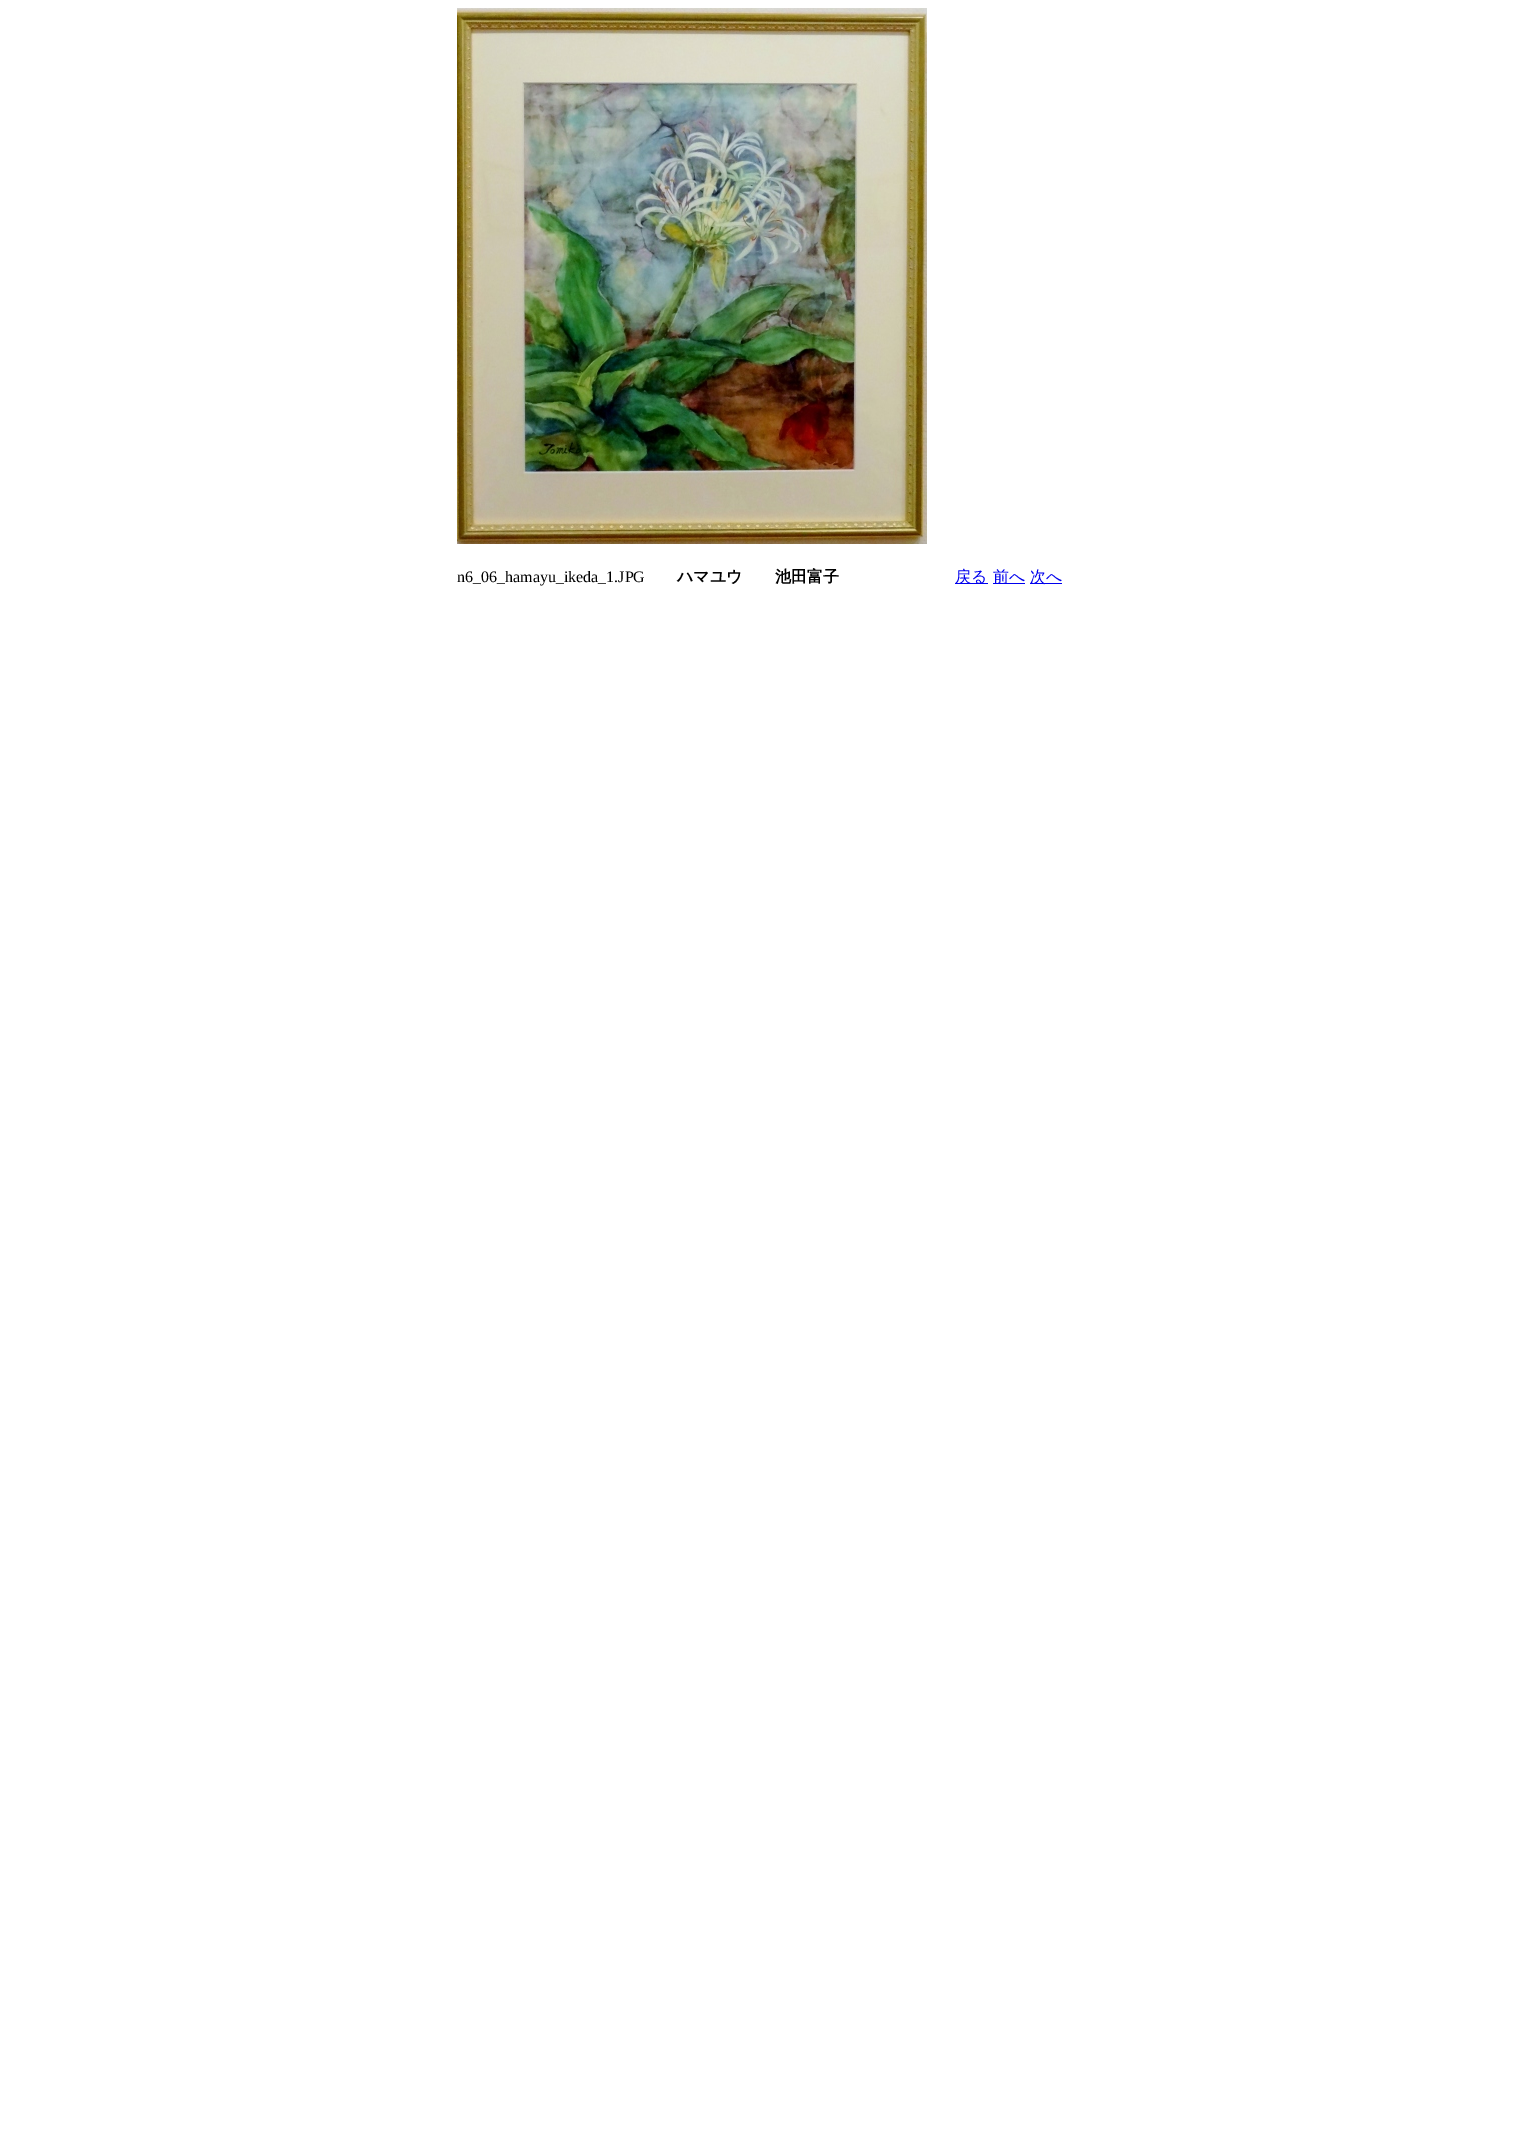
%!PS
<< /PageSize [1524 2147] >> setpagedevice
/rgb { 3 { 255 div 3 1 roll } repeat setrgbcolor } def
/font { [ exch dup neg 0 0 3 -1 roll 0 0 ] selectfont } def
/text { moveto show } def
/picture { 5 dict begin { /h /w /y /x /name } { exch def } forall
  gsave x y translate w h scale
  w h 8 [w 0 0 h 0 0] name (r) file false 3 colorimage grestore end } def
0 2147 translate 1 -1 scale
4 setmiterlimit
255 255 255 rgb
0 0 1524 2147 rectfill
(img_01.rgb) 457 8 470 536 picture
0 0 238 rgb
955 583 33 1 rectfill
993 583 32 1 rectfill
1030 583 32 1 rectfill
/LiberationSerif-Regular 16 font
0 0 0 rgb
(n6_06_hamayu_ikeda_1.JPG) 457 582 text
/WenQuanYiZenHei-Bold 16 font
(ハマユウ　　池田富子) 677 582 text
/WenQuanYiZenHei-Medium 16 font
0 0 238 rgb
(戻る) 955 582 text
(前へ) 993 582 text
(次へ) 1030 582 text
showpage
